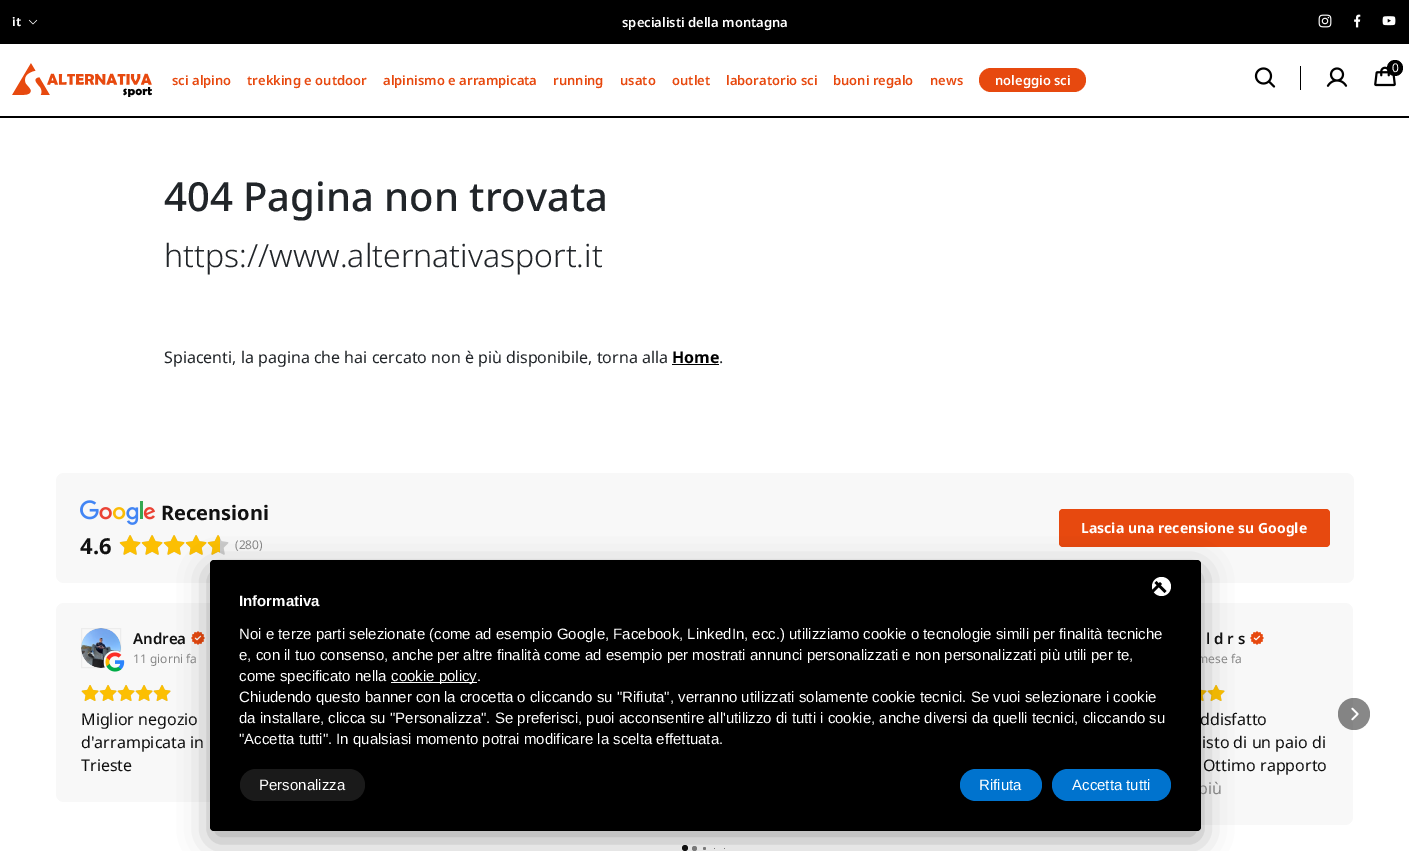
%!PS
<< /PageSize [1409 851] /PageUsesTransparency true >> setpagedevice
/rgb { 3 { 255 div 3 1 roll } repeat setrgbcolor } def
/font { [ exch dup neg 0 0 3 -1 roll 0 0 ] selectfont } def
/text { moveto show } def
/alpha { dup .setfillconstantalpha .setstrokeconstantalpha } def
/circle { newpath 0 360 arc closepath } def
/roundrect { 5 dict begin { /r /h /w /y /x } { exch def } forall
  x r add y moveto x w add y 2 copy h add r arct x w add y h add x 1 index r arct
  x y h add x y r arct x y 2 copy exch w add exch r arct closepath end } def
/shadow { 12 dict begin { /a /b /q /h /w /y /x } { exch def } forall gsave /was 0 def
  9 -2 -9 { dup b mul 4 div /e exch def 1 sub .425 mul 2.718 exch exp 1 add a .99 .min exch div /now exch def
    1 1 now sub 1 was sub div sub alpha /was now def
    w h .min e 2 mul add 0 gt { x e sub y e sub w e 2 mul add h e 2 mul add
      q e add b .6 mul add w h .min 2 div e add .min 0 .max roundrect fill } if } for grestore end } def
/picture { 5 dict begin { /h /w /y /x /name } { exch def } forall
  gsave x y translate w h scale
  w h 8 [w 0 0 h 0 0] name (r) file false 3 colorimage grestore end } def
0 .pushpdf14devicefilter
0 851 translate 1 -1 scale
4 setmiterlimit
255 255 255 rgb
0 0 1409 851 rectfill
0 0 0 rgb
0 0 1409 44 rectfill
(img_01.rgb) 28 19 10 6 picture
(img_02.rgb) 1318 14 14 14 picture
(img_03.rgb) 1354 14 7 14 picture
(img_04.rgb) 1382 16 14 10 picture
0 116 1409 2 rectfill
(img_05.rgb) 1254 67 22 21 picture
1300 66 1 24 rectfill
(img_06.rgb) 1326 67 22 20 picture
(img_07.rgb) 1374 66 22 21 picture
1395 68 8 circle fill
(img_08.rgb) 12 63 140 34 picture
231 73 15 rgb
979 68 107 24 12 roundrect fill
0 0 0 rgb
672 364 47 1 rectfill
248 248 248 rgb
56 473 1298 110 8 roundrect fill
(img_09.rgb) 80 500 75 25 picture
(img_11.rgb) 120 535 21 20 picture
(img_10.rgb) 119 535 22 20 picture
(img_11.rgb) 142 535 21 20 picture
(img_10.rgb) 141 535 22 20 picture
(img_11.rgb) 164 535 21 20 picture
(img_10.rgb) 163 535 22 20 picture
(img_11.rgb) 186 535 21 20 picture
(img_10.rgb) 185 535 22 20 picture
(img_11.rgb) 208 535 21 20 picture
(img_12.rgb) 207 535 13 20 picture
231 73 15 rgb
1059 509 271 38 4 roundrect fill
248 248 248 rgb
56 603 243 199 8 roundrect fill
gsave 101 648 20 circle clip newpath
<< /ShadingType 2 /ColorSpace /DeviceRGB /Coords [101 628 101 668] /Extend [true true] /Function << /FunctionType 2 /Domain [0 1] /C0 [0.898 0.898 0.898] /C1 [0.945 0.945 0.945] /N 1 >> >> shfill grestore
(img_13.rgb) 81 628 40 40 picture
0.05 alpha
17 17 17 rgb
81.5 628.5 39 39 rectstroke
1 alpha
(img_14.rgb) 103 650 22 22 picture
(img_15.rgb) 191 631 14 14 picture
(img_16.rgb) 81 685 18 16 picture
(img_17.rgb) 81 685 18 16 picture
(img_16.rgb) 99 685 18 16 picture
(img_17.rgb) 99 685 18 16 picture
(img_16.rgb) 117 685 18 16 picture
(img_17.rgb) 117 685 18 16 picture
(img_16.rgb) 135 685 18 16 picture
(img_17.rgb) 135 685 18 16 picture
(img_16.rgb) 153 685 18 16 picture
(img_17.rgb) 153 685 18 16 picture
248 248 248 rgb
1110 603 243 222 8 roundrect fill
(img_15.rgb) 1250 631 14 14 picture
(img_19.rgb) 1201 690 6 11 picture
(img_18.rgb) 1201 689 6 12 picture
(img_16.rgb) 1207 685 18 16 picture
(img_17.rgb) 1207 685 18 16 picture
0.5 alpha
17 17 17 rgb
1354 714 16 circle fill
1 alpha
(img_20.rgb) 1351 707 8 14 picture
685 848 3 circle fill
136 136 136 rgb
694.5 848.5 2.5 circle fill
704.5 848.5 1.5 circle fill
714.5 848.5 0.5 circle fill
724.5 848.5 0.5 circle fill
0 0 0 rgb
210 570 991 271 4 15 0.33 shadow
/NotoSans-Bold 12 font
255 255 255 rgb
(it) 12 26 text
/NotoSans-SemiBold 13 font
(specialisti della montagna) 622 27 text
/NotoSans-Regular 12 font
(0) 1392 72 text
/NotoSans-SemiBold 13 font
231 73 15 rgb
(sci alpino) 172 85 text
(trekking e outdoor) 247 85 text
(alpinismo e arrampicata) 383 85 text
(running) 553 85 text
(usato) 620 85 text
(outlet) 672 85 text
(laboratorio sci) 726 85 text
(buoni regalo) 833 85 text
(news) 930 85 text
255 255 255 rgb
(noleggio sci) 995 85 text
/NotoSans-Medium 40 font
33 37 41 rgb
(404 Pagina non trovata) 164 211 text
/NotoSans-Light 32 font
(https://www.alternativasport.it) 164 267 text
/NotoSans-Regular 16 font
(Spiacenti, la pagina che hai cercato non è più disponibile, torna alla) 164 363 text
/NotoSans-Bold 16 font
0 0 0 rgb
(Home) 672 363 text
/NotoSans-Regular 16 font
33 37 41 rgb
(.) 719 363 text
/NotoSans-Bold 20 font
17 17 17 rgb
(Recensioni) 161 520 text
/NotoSans-Bold 22 font
(4.6) 80 554 text
/NotoSans-Regular 12 font
133 133 133 rgb
(\(280\)) 235 549 text
/NotoSans-Bold 14 font
255 255 255 rgb
(Lascia una recensione su Google) 1081 533 text
/NotoSans-SemiBold 15 font
17 17 17 rgb
(Andrea) 133 644 text
/NotoSans-Regular 12 font
133 133 133 rgb
(11 giorni fa) 133 663 text
/NotoSans-Regular 16 font
17 17 17 rgb
(Miglior negozio) 81 725 text
(d'arrampicata in) 81 748 text
(Trieste) 81 771 text
/NotoSans-SemiBold 15 font
(l d r s) 1206 644 text
/NotoSans-Regular 12 font
133 133 133 rgb
(mese fa) 1197 663 text
/NotoSans-Regular 16 font
17 17 17 rgb
(ddisfatto) 1200 725 text
(isto di un paio di) 1202 748 text
(Ottimo rapporto) 1203 771 text
133 133 133 rgb
(più) 1198 794 text
0 0 0 rgb
210 560 991 271 4 roundrect fill
255 255 255 rgb
1161.5 586.5 9.5 circle fill
0 0 0 rgb
1154.5 583 moveto 2 -2 rlineto 10 10 rlineto -2 2 rlineto closepath fill
1160 582 moveto 2 2 rlineto -8.5 8.5 rlineto -2 -2 rlineto closepath fill
/LiberationSans-Bold 15 font
255 255 255 rgb
(Informativa) 239 606 text
/LiberationSans-Regular 15 font
(Noi e terze parti selezionate \(come ad esempio Google, Facebook, LinkedIn, ecc.\) utilizziamo cookie o tecnologie simili per finalità tecniche) 239 639 text
(e, con il tuo consenso, anche per altre finalità come ad esempio per mostrati annunci personalizzati e non personalizzati più utili per te,) 239 660 text
(come specificato nella) 239 681 text
391 682 86 1 rectfill
(cookie policy.) 391 681 text
(Chiudendo questo banner con la crocetta o cliccando su "Rifiuta", verranno utilizzati solamente cookie tecnici. Se vuoi selezionare i cookie) 239 702 text
(da installare, clicca su "Personalizza". Se preferisci, puoi acconsentire all'utilizzo di tutti i cookie, anche diversi da quelli tecnici, cliccando su) 239 723 text
("Accetta tutti". In qualsiasi momento potrai modificare la scelta effettuata.) 239 744 text
26 26 26 rgb
240 769 125 32 16 roundrect fill
255 255 255 rgb
(Personalizza) 259 790 text
0 115 206 rgb
960 769 82 32 16 roundrect fill
255 255 255 rgb
(Rifiuta) 979 790 text
0 115 206 rgb
1052 769 119 32 16 roundrect fill
255 255 255 rgb
(Accetta tutti) 1072 790 text
.poppdf14devicefilter showpage
